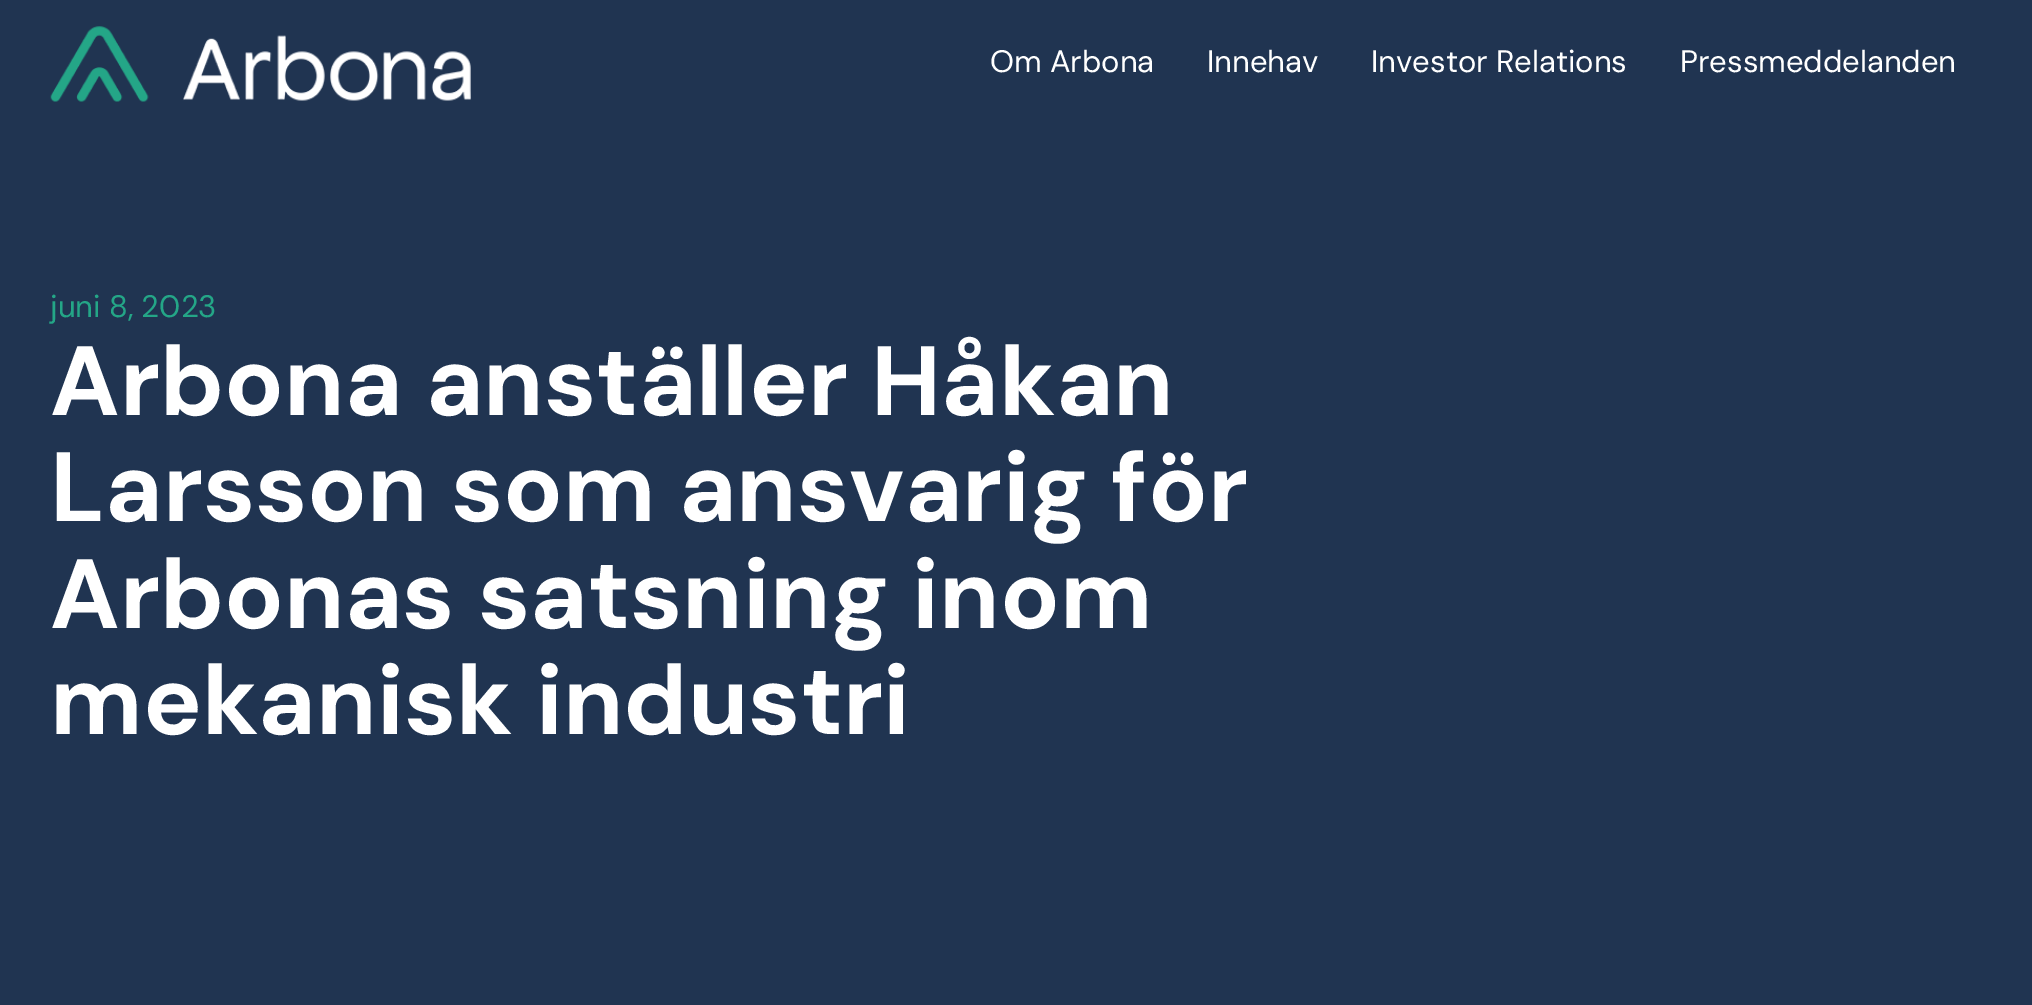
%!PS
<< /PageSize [2032 1005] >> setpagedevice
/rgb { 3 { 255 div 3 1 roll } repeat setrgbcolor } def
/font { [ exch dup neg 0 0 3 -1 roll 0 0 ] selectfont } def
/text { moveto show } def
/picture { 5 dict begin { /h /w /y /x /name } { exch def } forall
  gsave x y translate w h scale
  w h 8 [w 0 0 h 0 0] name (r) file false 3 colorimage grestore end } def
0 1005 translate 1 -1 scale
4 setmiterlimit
32 52 81 rgb
0 0 2032 1005 rectfill
(img_01.rgb) 50 26 421 76 picture
/DMSans-Regular 31 font
255 255 255 rgb
(Om Arbona) 990 72 text
(Innehav) 1207 72 text
(Investor Relations) 1371 72 text
(Pressmeddelanden) 1680 72 text
36 166 135 rgb
(juni 8, 2023) 50 317 text
/DMSans-Bold 98.3 font
255 255 255 rgb
(Arbona anställer Håkan) 50 415 text
(Larsson som ansvarig för) 50 521 text
(Arbonas satsning inom) 50 628 text
(mekanisk industri) 50 734 text
showpage
